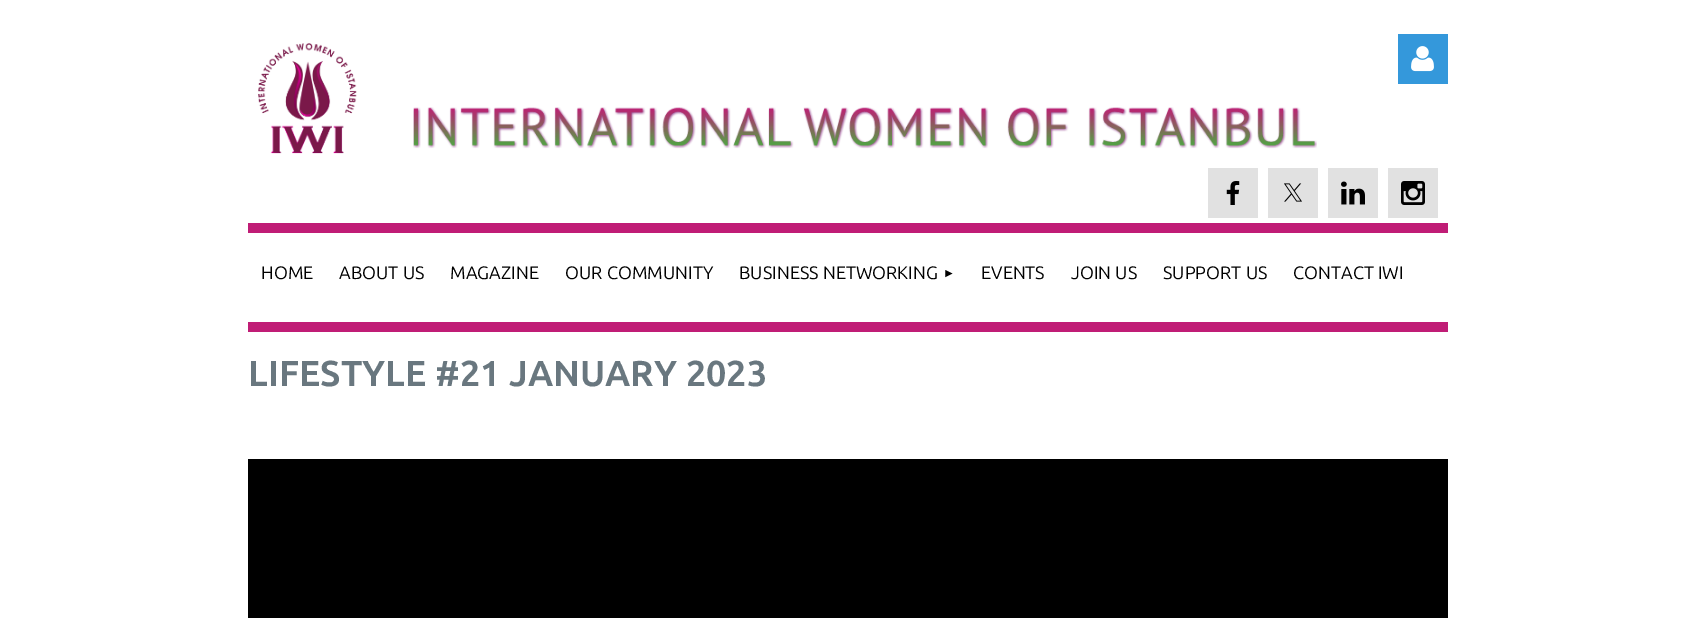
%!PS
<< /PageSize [1695 618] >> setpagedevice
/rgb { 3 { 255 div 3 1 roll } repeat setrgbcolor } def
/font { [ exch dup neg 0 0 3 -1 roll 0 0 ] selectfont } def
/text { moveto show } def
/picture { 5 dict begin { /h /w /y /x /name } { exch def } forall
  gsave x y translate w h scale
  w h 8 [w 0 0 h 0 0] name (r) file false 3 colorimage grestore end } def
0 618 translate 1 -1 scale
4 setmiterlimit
255 255 255 rgb
0 0 1695 618 rectfill
(img_01.rgb) 258 43 99 111 picture
(img_02.rgb) 413 107 904 42 picture
52 152 219 rgb
1398 34 50 50 rectfill
(img_03.rgb) 1411 46 23 26 picture
225 225 225 rgb
1208 168 50 50 rectfill
(img_04.rgb) 1226 181 14 24 picture
1268 168 50 50 rectfill
(img_05.rgb) 1284 183 18 19 picture
1328 168 50 50 rectfill
(img_06.rgb) 1341 181 24 24 picture
1388 168 50 50 rectfill
(img_07.rgb) 1401 181 24 24 picture
192 29 118 rgb
248 223 1200 10 rectfill
248 322 1200 10 rectfill
0 0 0 rgb
248 459 1200 159 rectfill
/Ubuntu-Regular 18 font
(HOME) 261 279 text
(ABOUT US) 339 279 text
(MAGAZINE) 450 279 text
(OUR COMMUNITY) 565 279 text
(BUSINESS NETWORKING) 739 279 text
/LiberationSans-Regular 12 font
(►) 943 277 text
/Ubuntu-Regular 18 font
(EVENTS) 981 279 text
(JOIN US) 1071 279 text
(SUPPORT US) 1163 279 text
(CONTACT IWI) 1293 279 text
/Ubuntu-Bold 36 font
105 119 127 rgb
(LIFESTYLE #21 JANUARY 2023) 248 386 text
showpage
